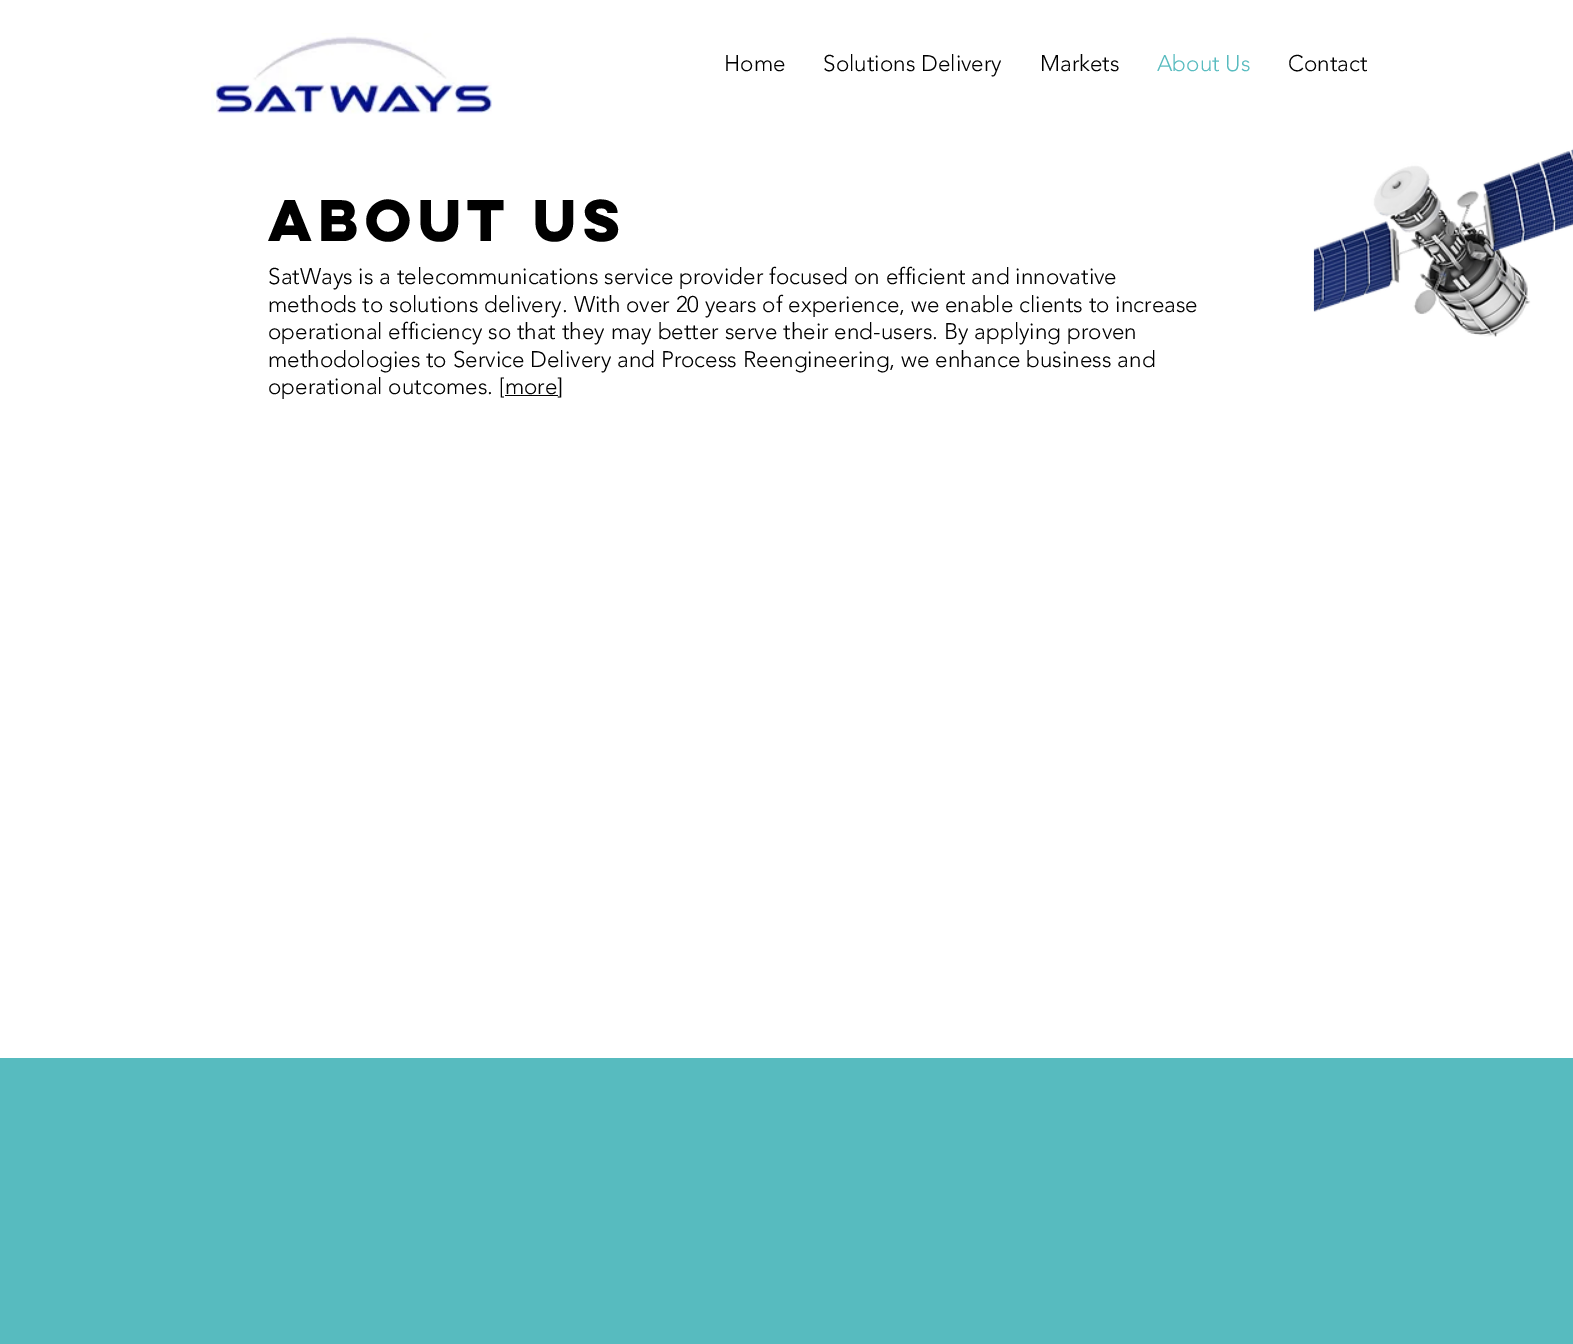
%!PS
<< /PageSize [1573 1344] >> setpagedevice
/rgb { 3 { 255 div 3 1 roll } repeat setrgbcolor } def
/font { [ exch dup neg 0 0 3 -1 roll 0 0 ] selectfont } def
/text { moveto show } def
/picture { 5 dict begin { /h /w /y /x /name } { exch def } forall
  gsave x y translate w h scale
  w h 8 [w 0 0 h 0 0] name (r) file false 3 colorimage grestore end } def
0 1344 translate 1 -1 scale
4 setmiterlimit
255 255 255 rgb
0 0 1573 1344 rectfill
(img_01.rgb) 211 33 281 81 picture
0 0 0 rgb
505 395 53 1 rectfill
(img_02.rgb) 1313 148 260 189 picture
87 187 191 rgb
0 1058 1573 286 rectfill
/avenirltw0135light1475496-Light 22.5 font
0 0 0 rgb
(Home) 724 71 text
(Solutions Delivery) 823 71 text
(Markets) 1040 71 text
87 187 191 rgb
(About Us) 1157 71 text
0 0 0 rgb
(Contact) 1288 71 text
/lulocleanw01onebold-Bold 52.5 font
268 241 moveto -5.25 0 (ABOUT US) ashow
/avenirltw0135light1475496-Light 22.5 font
(SatWays is a telecommunications service provider focused on efficient and innovative) 268 284 text
(methods to solutions delivery. With over 20 years of experience, we enable clients to increase) 268 312 text
(operational efficiency so that they may better serve their end-users. By applying proven) 268 339 text
(methodologies to Service Delivery and Process Reengineering, we enhance business and) 268 367 text
(operational outcomes. [more) 268 394 text
(]) 557 394 text
showpage
